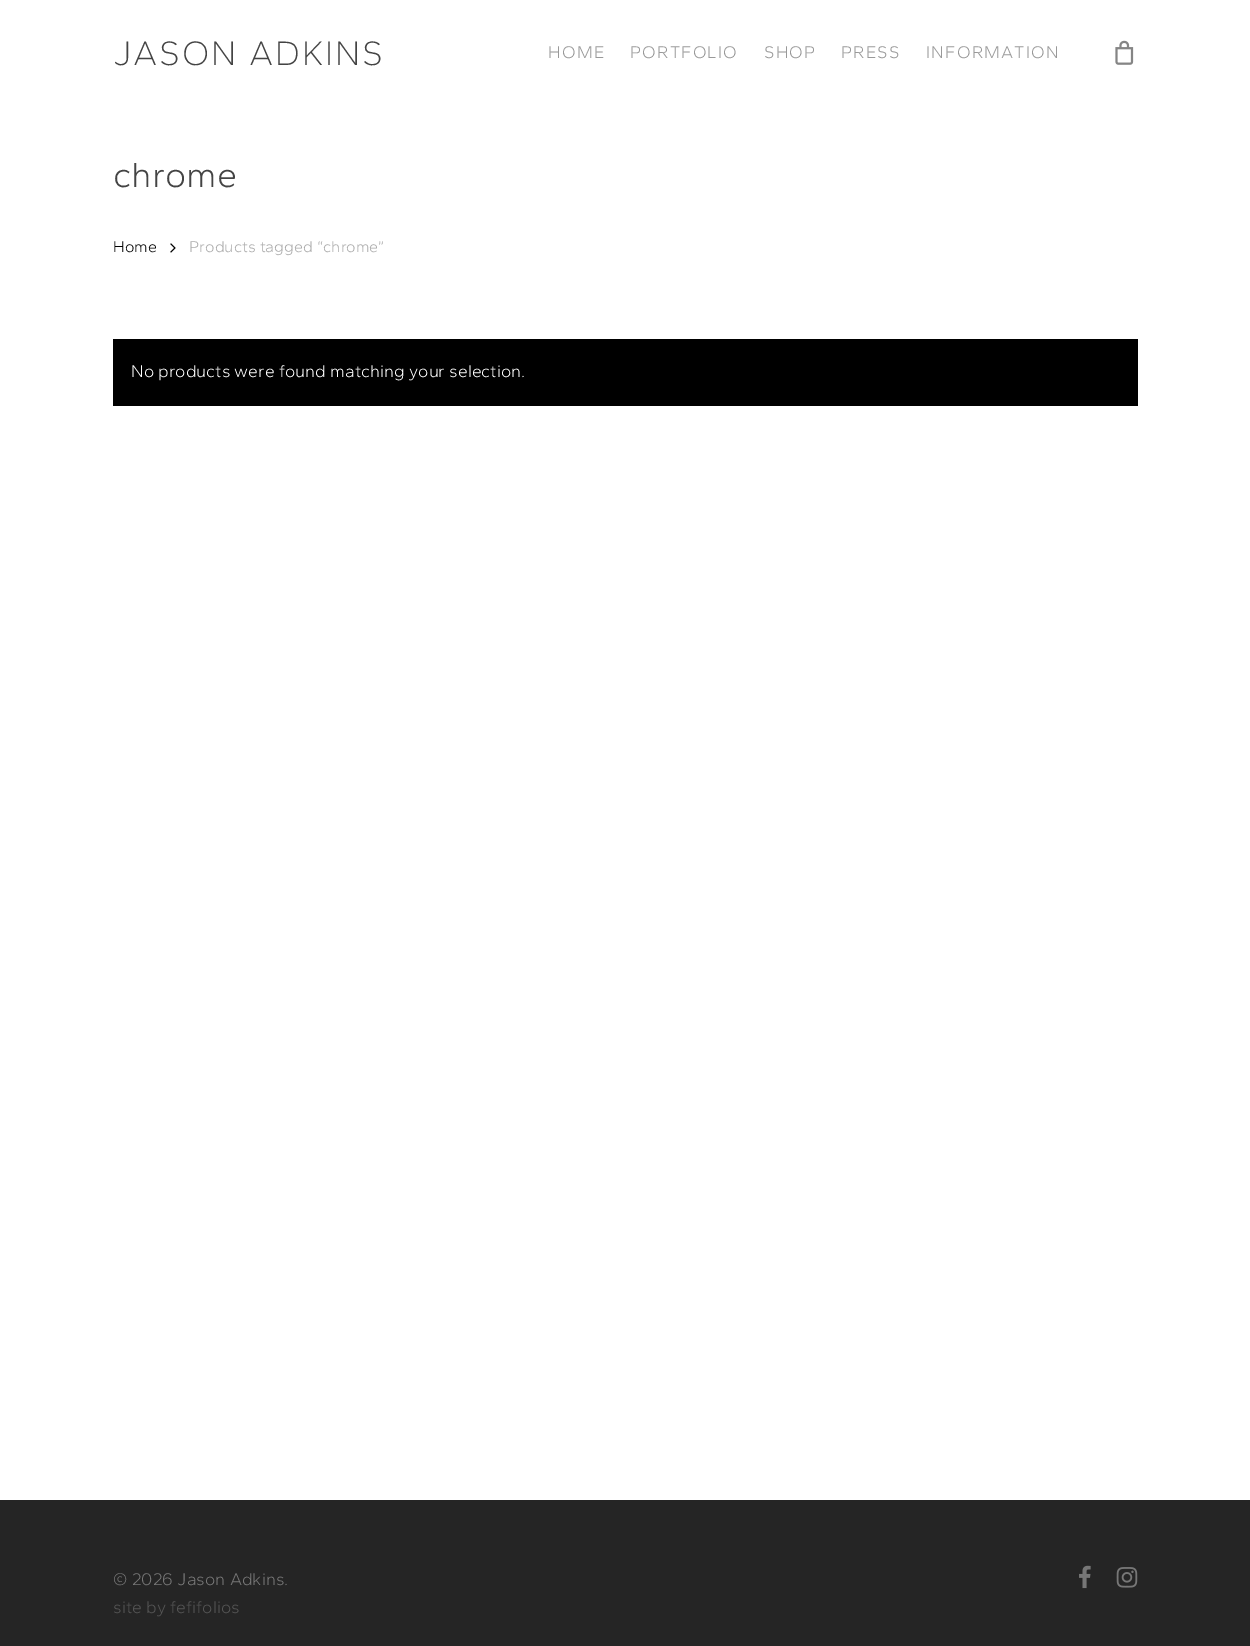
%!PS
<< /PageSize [1250 1646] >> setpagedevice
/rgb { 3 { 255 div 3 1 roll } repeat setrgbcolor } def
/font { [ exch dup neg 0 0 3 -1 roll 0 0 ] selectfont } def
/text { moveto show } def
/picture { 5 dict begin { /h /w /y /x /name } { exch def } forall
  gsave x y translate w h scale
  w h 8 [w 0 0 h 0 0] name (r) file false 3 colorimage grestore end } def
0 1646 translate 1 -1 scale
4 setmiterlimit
255 255 255 rgb
0 0 1250 1646 rectfill
(img_01.rgb) 1115 40 19 25 picture
(img_02.rgb) 170 243 6 10 picture
0 0 0 rgb
113 339 1025 67 rectfill
37 37 37 rgb
0 1500 1250 146 rectfill
(img_03.rgb) 1079 1565 12 24 picture
(img_04.rgb) 1116 1567 22 21 picture
/Gantari-ExtraLight 35 font
68 68 68 rgb
113 65 moveto 1.9 0 (JASON ADKINS) ashow
/Gantari-Light 17.5 font
153 153 153 rgb
548 58 moveto 1.25 0 (HOME) ashow
630 58 moveto 1.25 0 (PORTFOLIO) ashow
764 58 moveto 1.25 0 (SHOP) ashow
841 58 moveto 1.25 0 (PRESS) ashow
926 58 moveto 1.25 0 (INFORMATION) ashow
/Gantari-Light 36 font
68 68 68 rgb
(chrome) 113 187 text
/Gantari-Light 16.1 font
0 0 0 rgb
(Home) 113 252 text
171 171 171 rgb
(Products tagged “chrome”) 189 252 text
/Gantari-Light 17.5 font
255 255 255 rgb
(No products were found matching your selection.) 131 377 text
119 119 119 rgb
(© 2026 Jason Adkins.) 113 1585 text
85 85 85 rgb
(site by fefifolios) 113 1613 text
showpage
